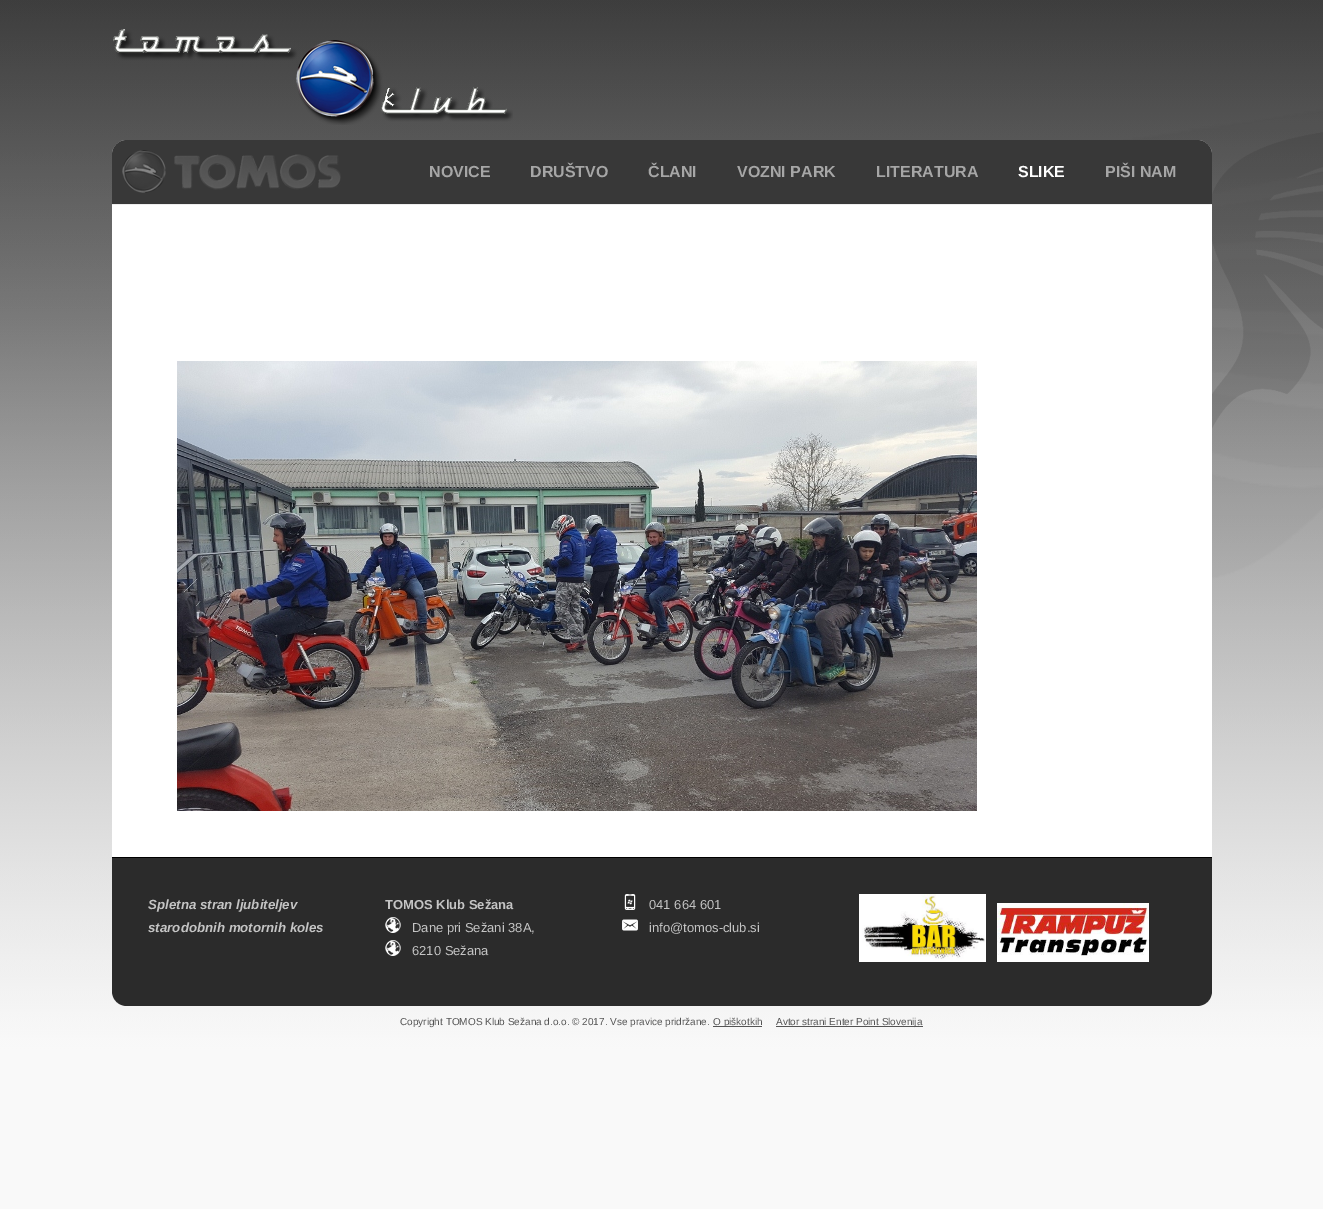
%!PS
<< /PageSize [1323 1209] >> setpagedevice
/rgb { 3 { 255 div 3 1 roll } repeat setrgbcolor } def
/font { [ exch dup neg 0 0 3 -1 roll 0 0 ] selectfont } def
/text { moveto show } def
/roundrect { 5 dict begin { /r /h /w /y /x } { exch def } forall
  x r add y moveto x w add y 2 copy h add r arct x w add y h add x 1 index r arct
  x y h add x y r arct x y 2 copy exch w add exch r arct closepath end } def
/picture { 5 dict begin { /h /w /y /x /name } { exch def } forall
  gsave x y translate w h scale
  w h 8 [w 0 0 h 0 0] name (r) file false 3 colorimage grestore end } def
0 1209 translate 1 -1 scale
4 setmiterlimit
255 255 255 rgb
0 0 1323 1209 rectfill
(img_01.rgb) 0 0 1323 1209 picture
112 140 1100 866 15 roundrect fill
56 56 56 rgb
127 140 moveto 1070 0 rlineto 8.5 0 15 6.5 15 15 rcurveto 0 50 rlineto -1100 0 rlineto 0 -50 rlineto 0 -8.5 6.5 -15 15 -15 rcurveto closepath fill
237 237 237 rgb
112 204 1100 1 rectfill
(img_02.rgb) 113 29 400 96 picture
(img_03.rgb) 122 150 219 43 picture
(img_04.rgb) 177 361 800 450 picture
43 43 43 rgb
112 857 moveto 1100 0 rlineto 0 134 rlineto 0 8.5 -6.5 15 -15 15 rcurveto -1070 0 rlineto -8.5 0 -15 -6.5 -15 -15 rcurveto closepath fill
0 0 0 rgb
112 857 1100 1 rectfill
(img_05.rgb) 385 917 16 16 picture
(img_05.rgb) 385 940 16 16 picture
(img_06.rgb) 624 894 12 16 picture
(img_07.rgb) 622 919 16 12 picture
(img_08.rgb) 859 894 127 68 picture
(img_09.rgb) 997 903 152 59 picture
84 84 84 rgb
713 1026 49 1 rectfill
776 1026 147 1 rectfill
/LiberationSans-Bold 16 font
166 166 166 rgb
(NOVICE) 429 177 text
(DRUŠTVO) 530 177 text
(ČLANI) 648 177 text
(VOZNI PARK) 737 177 text
(LITERATURA) 876 177 text
255 255 255 rgb
(SLIKE) 1018 177 text
166 166 166 rgb
(PIŠI NAM) 1105 177 text
/LiberationSans-BoldItalic 13.3 font
196 196 196 rgb
(Spletna stran ljubiteljev) 148 909 text
(starodobnih motornih koles) 148 932 text
/LiberationSans-Bold 13 font
(TOMOS Klub Sežana) 385 909 text
/LiberationSans-Regular 13 font
(Dane pri Sežani 38A,) 412 932 text
(6210 Sežana) 412 955 text
(041 664 601) 649 909 text
(info@tomos-club.si) 649 932 text
/LiberationSans-Regular 10 font
84 84 84 rgb
(Copyright TOMOS Klub Sežana d.o.o. © 2017. Vse pravice pridržane.) 400 1025 text
(O piškotkih) 713 1025 text
(Avtor strani Enter Point Slovenija) 776 1025 text
showpage
